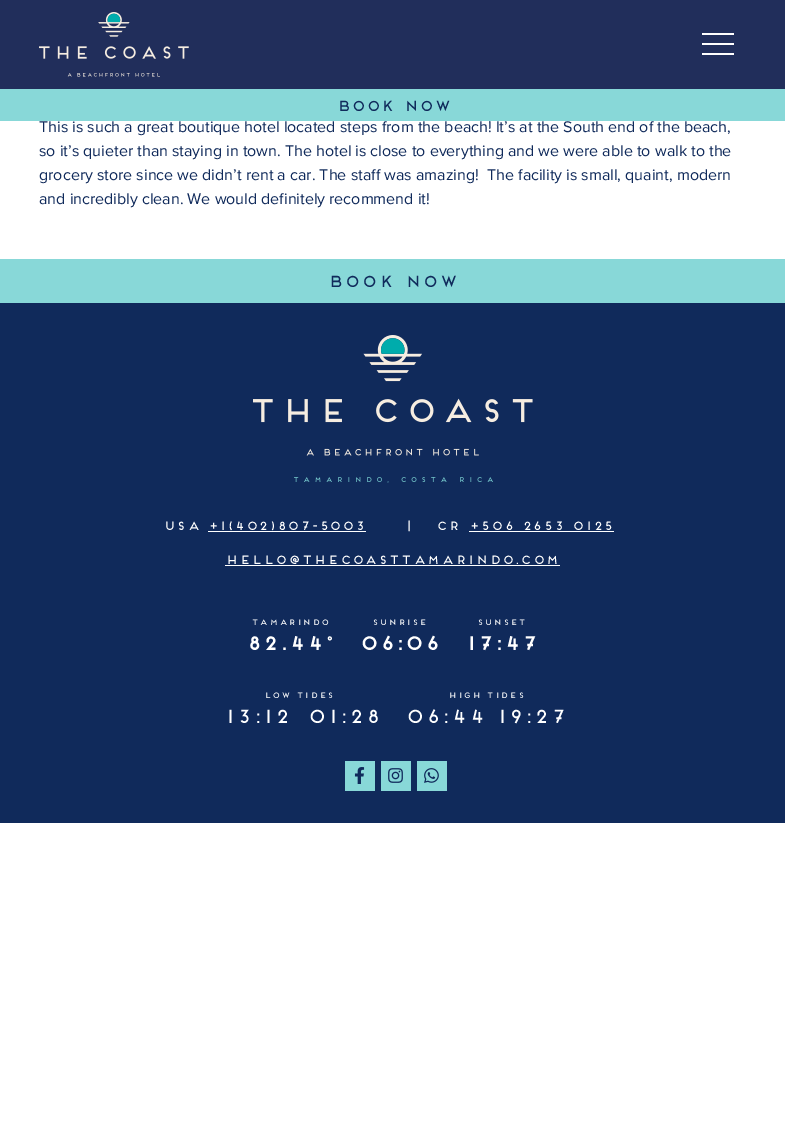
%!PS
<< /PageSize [785 1148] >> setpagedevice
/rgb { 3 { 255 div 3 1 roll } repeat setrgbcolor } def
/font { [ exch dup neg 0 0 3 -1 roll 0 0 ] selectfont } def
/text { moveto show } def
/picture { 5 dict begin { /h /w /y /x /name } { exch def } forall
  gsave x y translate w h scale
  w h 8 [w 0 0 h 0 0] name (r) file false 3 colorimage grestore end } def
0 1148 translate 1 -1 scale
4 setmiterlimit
255 255 255 rgb
0 0 785 1148 rectfill
33 46 91 rgb
0 0 785 89 rectfill
(img_01.rgb) 39 12 150 65 picture
255 255 255 rgb
702 43 32 2 rectfill
702 33 32 2 rectfill
702 53 32 2 rectfill
136 216 216 rgb
0 89 785 32 rectfill
16 42 91 rgb
0 303 785 520 rectfill
136 216 216 rgb
0 259 785 44 rectfill
(img_02.rgb) 253 335 280 148 picture
255 255 255 rgb
208 531 158 1 rectfill
469 531 145 1 rectfill
225 565 335 1 rectfill
136 216 216 rgb
345 761 30 30 rectfill
(img_03.rgb) 354 767 11 17 picture
381 761 30 30 rectfill
(img_04.rgb) 388 768 15 15 picture
417 761 30 30 rectfill
(img_05.rgb) 424 768 15 15 picture
/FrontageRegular-Regular 14.5 font
16 42 91 rgb
336 111 moveto 0.25 0 (BOOK NOW) ashow
/ProximaNova-Regular 16 font
(This is such a great boutique hotel located steps from the beach! It’s at the South end of the beach,) 39 132 text
(so it’s quieter than staying in town. The hotel is close to everything and we were able to walk to the) 39 156 text
(grocery store since we didn’t rent a car. The staff was amazing!  The facility is small, quaint, modern) 39 180 text
(and incredibly clean. We would definitely recommend it!) 39 204 text
/FrontageRegular-Regular 16 font
327 287 moveto 0.8 0 (BOOK NOW) ashow
/FrontageRegular-Regular 12 font
255 255 255 rgb
163 530 moveto 0.8 0 (USA) ashow
208 530 moveto 0.8 0 (+1\(402\)807-5003) ashow
405 530 moveto 0.8 0 (|) ashow
436 530 moveto 0.8 0 (CR) ashow
469 530 moveto 0.8 0 (+506 2653 0125) ashow
225 564 moveto 0.8 0 (HELLO@THECOASTTAMARINDO.COM) ashow
/FrontageRegular-Regular 8 font
251 625 moveto 0.8 0 (TAMARINDO) ashow
/FrontageRegular-Bold 19 font
246 650 moveto 0.8 0 (82.44°) ashow
/FrontageRegular-Regular 8 font
372 625 moveto 0.8 0 (SUNRISE) ashow
/FrontageRegular-Bold 19 font
359 650 moveto 0.8 0 (06:06) ashow
/FrontageRegular-Regular 8 font
477 625 moveto 0.8 0 (SUNSET) ashow
/FrontageRegular-Bold 19 font
465 650 moveto 0.8 0 (17:47) ashow
/FrontageRegular-Regular 8 font
264 698 moveto 0.8 0 (LOW TIDES) ashow
/FrontageRegular-Regular 19 font
224 723 moveto 0.8 0 (13:12) ashow
307 723 moveto 0.8 0 (01:28) ashow
/FrontageRegular-Regular 8 font
448 698 moveto 0.8 0 (HIGH TIDES) ashow
/FrontageRegular-Regular 19 font
405 723 moveto 0.8 0 (06:44) ashow
496 723 moveto 0.8 0 (19:27) ashow
showpage
